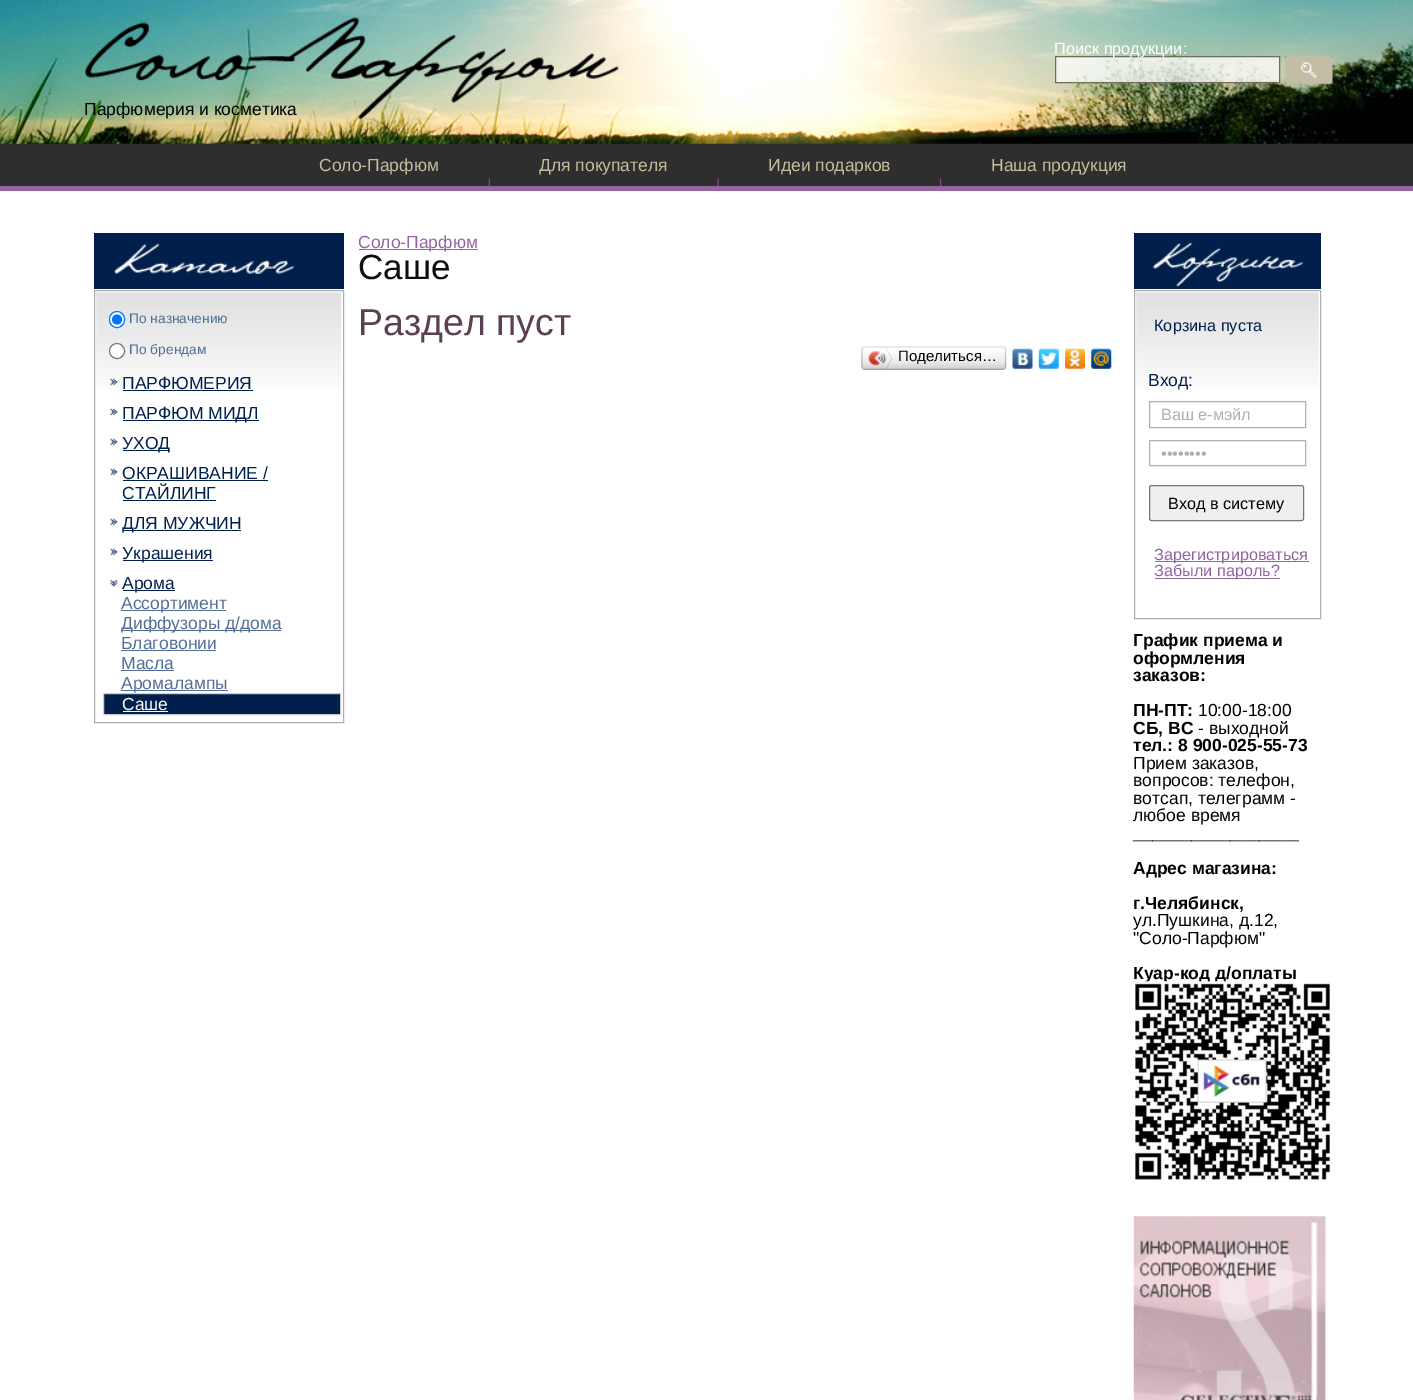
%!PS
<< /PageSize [1413 1400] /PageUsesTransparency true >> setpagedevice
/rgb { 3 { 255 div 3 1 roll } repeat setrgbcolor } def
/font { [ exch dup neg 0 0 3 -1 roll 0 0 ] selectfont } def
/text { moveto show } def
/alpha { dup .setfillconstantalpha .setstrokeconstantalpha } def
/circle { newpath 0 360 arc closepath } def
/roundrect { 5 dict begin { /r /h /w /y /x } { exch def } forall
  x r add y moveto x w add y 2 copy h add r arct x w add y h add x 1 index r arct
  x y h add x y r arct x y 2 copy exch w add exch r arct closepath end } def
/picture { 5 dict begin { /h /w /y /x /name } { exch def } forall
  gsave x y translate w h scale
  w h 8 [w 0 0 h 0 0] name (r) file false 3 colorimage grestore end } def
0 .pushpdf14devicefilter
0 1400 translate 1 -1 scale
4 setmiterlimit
255 255 255 rgb
0 0 1413 1400 rectfill
46 46 46 rgb
0 143 1413 43 rectfill
(img_01.rgb) 0 0 1413 144 picture
149 99 162 rgb
0 186 1413 5 rectfill
0.75 alpha
255 255 255 rgb
1055.5 56.5 moveto 224 0 rlineto 0 26 rlineto -224 0 rlineto closepath fill
1 alpha
114 109 91 rgb
1055.5 56.5 moveto 224 0 rlineto 0 26 rlineto -224 0 rlineto closepath stroke
(img_02.rgb) 1285 56 48 28 picture
(img_03.rgb) 85 17 534 102 picture
(img_04.rgb) 488 178 2 9 picture
(img_05.rgb) 717 178 2 9 picture
(img_06.rgb) 940 178 2 9 picture
149 99 162 rgb
359 249 119 1 rectfill
(img_07.rgb) 865 346 138 24 picture
(img_08.rgb) 861 346 4 24 picture
(img_09.rgb) 868 347 26 22 picture
(img_10.rgb) 1002 346 5 24 picture
(img_11.rgb) 1012 348 21 21 picture
(img_12.rgb) 1038 348 21 21 picture
(img_13.rgb) 1065 348 20 21 picture
(img_14.rgb) 1091 348 21 21 picture
0 31 74 rgb
94 233 250 56 rectfill
(img_15.rgb) 113 243 181 31 picture
175 175 175 rgb
94.5 290.5 249 432 rectstroke
(img_16.rgb) 96 292 246 95 picture
255 255 255 rgb
109.5 311.5 15 16 7.5 roundrect gsave fill grestore
0 117 255 rgb
stroke
117 319.5 5 circle fill
255 255 255 rgb
117 351 7.5 circle gsave fill grestore
118 118 118 rgb
stroke
(img_17.rgb) 110 378 8 8 picture
0 31 74 rgb
123 390 130 1 rectfill
(img_18.rgb) 110 408 8 8 picture
123 420 136 1 rectfill
(img_18.rgb) 110 438 8 8 picture
123 450 47 1 rectfill
(img_18.rgb) 110 468 8 8 picture
123 480 145 1 rectfill
123 500 93 1 rectfill
(img_18.rgb) 110 518 8 8 picture
123 530 118 1 rectfill
(img_18.rgb) 110 548 8 8 picture
123 560 90 1 rectfill
(img_19.rgb) 110 579 8 8 picture
123 590 52 1 rectfill
82 110 148 rgb
121 610 105 1 rectfill
121 630 160 1 rectfill
121 650 95 1 rectfill
121 670 53 1 rectfill
121 690 107 1 rectfill
0 31 74 rgb
103.5 693.5 moveto 237 0 rlineto 0 21 rlineto -237 0 rlineto closepath gsave fill grestore
204 204 204 rgb
stroke
255 255 255 rgb
123 711 45 1 rectfill
0 31 74 rgb
1134 233 187 56 rectfill
(img_20.rgb) 1152 242 151 45 picture
175 175 175 rgb
1134.5 290.5 186 328 rectstroke
(img_21.rgb) 1136 292 183 95 picture
1149.5 401.5 156 26 rectstroke
1149.5 440.5 156 25 rectstroke
239 239 239 rgb
1149.5 485.5 154 35 2 roundrect gsave fill grestore
118 118 118 rgb
stroke
149 99 162 rgb
1155 561 154 1 rectfill
1155 578 125 1 rectfill
(img_23.rgb) 1133 1216 194 184 picture
/LiberationSans-Regular 16.25 font
255 255 255 rgb
(Поиск продукции:) 1054 54 text
/LiberationSans-Regular 17.5 font
0 0 0 rgb
(Парфюмерия и косметика) 84 115 text
198 188 158 rgb
(Соло-Парфюм) 319 171 text
(Для покупателя) 539 171 text
(Идеи подарков) 768 171 text
(Наша продукция) 991 171 text
149 99 162 rgb
(Соло-Парфюм) 358 248 text
/LiberationSans-Regular 35 font
13 13 13 rgb
(Саше) 358 279 text
/LiberationSans-Regular 37.5 font
91 63 83 rgb
(Раздел пуст) 358 335 text
/LiberationSans-Regular 15 font
0 0 0 rgb
(Поделиться…) 898 361 text
/LiberationSans-Regular 13.75 font
82 110 148 rgb
(По назначению) 129 323 text
(По брендам) 129 354 text
/LiberationSans-Regular 17.5 font
0 31 74 rgb
(ПАРФЮМЕРИЯ) 122 389 text
(ПАРФЮМ МИДЛ) 122 419 text
(УХОД) 122 449 text
(ОКРАШИВАНИЕ /) 122 479 text
(СТАЙЛИНГ) 122 499 text
(ДЛЯ МУЖЧИН) 122 529 text
(Украшения) 122 559 text
(Арома) 122 589 text
82 110 148 rgb
(Ассортимент) 121 609 text
(Диффузоры д/дома) 121 629 text
(Благовонии) 121 649 text
(Масла) 121 669 text
(Аромалампы) 121 689 text
255 255 255 rgb
(Саше) 122 710 text
/LiberationSans-Regular 16.25 font
0 31 74 rgb
(Корзина пуста) 1154 331 text
/LiberationSans-Regular 17.5 font
(Вход:) 1148 386 text
/LiberationSans-Regular 16.25 font
175 175 175 rgb
(Ваш е-мэйл) 1161 420 text
(••••••••) 1161 459 text
0 0 0 rgb
(Вход в систему) 1168 509 text
149 99 162 rgb
(Зарегистрироваться) 1154 560 text
(Забыли пароль?) 1154 576 text
/LiberationSans-Bold 17.5 font
0 0 0 rgb
(График приема и) 1133 646 text
(оформления) 1133 664 text
(заказов:) 1133 681 text
(ПН-ПТ:) 1133 716 text
/LiberationSans-Regular 17.5 font
(10:00-18:00) 1198 716 text
/LiberationSans-Bold 17.5 font
(СБ, ВС) 1133 734 text
/LiberationSans-Regular 17.5 font
(- выходной) 1198 734 text
/LiberationSans-Bold 17.5 font
(тел.: 8 900-025-55-73) 1133 751 text
/LiberationSans-Regular 17.5 font
(Прием заказов,) 1133 769 text
(вопросов: телефон,) 1133 786 text
(вотсап, телеграмм -) 1133 804 text
(любое время) 1133 821 text
/LiberationSans-Bold 17.5 font
(_________________) 1133 839 text
(Адрес магазина:) 1133 874 text
(г.Челябинск,) 1133 909 text
/LiberationSans-Regular 17.5 font
(ул.Пушкина, д.12,) 1133 926 text
("Соло-Парфюм") 1133 944 text
/LiberationSans-Bold 17.5 font
(Куар-код д/оплаты) 1133 979 text
(img_22.rgb) 1135 981 196 200 picture
.poppdf14devicefilter showpage
